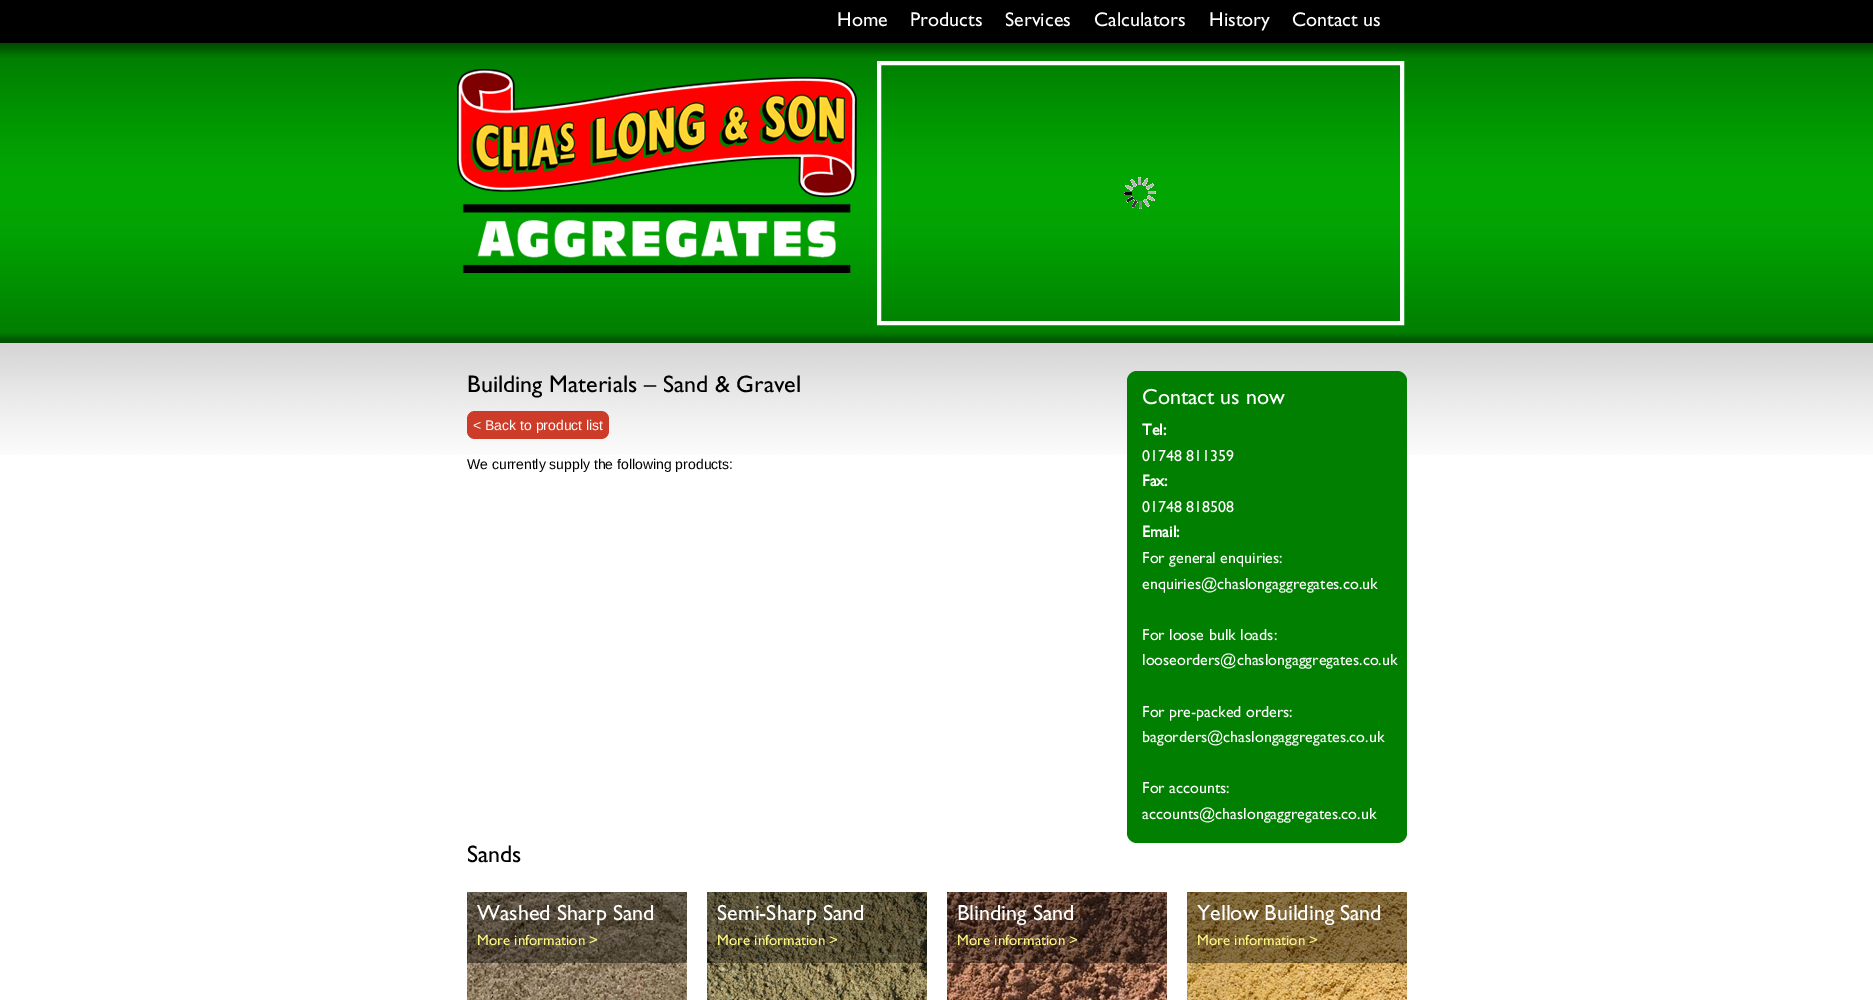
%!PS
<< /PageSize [1873 1000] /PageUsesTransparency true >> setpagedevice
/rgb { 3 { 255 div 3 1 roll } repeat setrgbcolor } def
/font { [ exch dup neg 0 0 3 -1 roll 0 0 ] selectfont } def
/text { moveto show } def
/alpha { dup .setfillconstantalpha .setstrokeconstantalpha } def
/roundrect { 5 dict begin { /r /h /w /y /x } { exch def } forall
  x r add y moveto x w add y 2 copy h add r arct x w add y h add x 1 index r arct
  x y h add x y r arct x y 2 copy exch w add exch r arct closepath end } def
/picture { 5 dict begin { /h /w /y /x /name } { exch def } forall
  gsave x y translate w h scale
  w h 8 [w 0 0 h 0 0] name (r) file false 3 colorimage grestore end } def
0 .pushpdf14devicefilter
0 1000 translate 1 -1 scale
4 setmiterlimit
255 255 255 rgb
0 0 1873 1000 rectfill
0 0 0 rgb
0 0 1873 43 rectfill
(img_01.rgb) 0 43 1873 300 picture
(img_02.rgb) 457 69 400 204 picture
(img_03.rgb) 1124 177 32 32 picture
255 255 255 rgb
4 setlinewidth
879 63 523 260 rectstroke
(img_04.rgb) 0 343 1873 112 picture
204 60 41 rgb
467 411 142 28 8 roundrect fill
1 127 1 rgb
1127 371 280 472 10 roundrect fill
(img_05.rgb) 467 892 220 108 picture
0.4 alpha
0 0 0 rgb
467 892 220 71 rectfill
1 alpha
(img_06.rgb) 707 892 220 108 picture
0.4 alpha
707 892 220 71 rectfill
1 alpha
(img_07.rgb) 947 892 220 108 picture
0.4 alpha
947 892 220 71 rectfill
1 alpha
(img_08.rgb) 1187 892 220 108 picture
0.4 alpha
1187 892 220 71 rectfill
/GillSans-Medium 20 font
1 alpha
255 255 255 rgb
(Home) 837 26 text
(Products) 910 26 text
(Services) 1005 26 text
(Calculators) 1094 26 text
(History) 1209 26 text
(Contact us) 1292 26 text
/GillSans-Medium 24 font
0 0 0 rgb
(Building Materials – Sand & Gravel) 467 392 text
/LiberationSans-Regular 14 font
255 255 255 rgb
(< Back to product list) 473 430 text
0 0 0 rgb
(We currently supply the following products:) 467 469 text
/GillSans-Medium 22 font
255 255 255 rgb
(Contact us now) 1142 404 text
/GillSans-Bold 16 font
(Tel:) 1142 435 text
/GillSans-Medium 16 font
(01748 811359) 1142 461 text
/GillSans-Bold 16 font
(Fax:) 1142 486 text
/GillSans-Medium 16 font
(01748 818508) 1142 512 text
/GillSans-Bold 16 font
(Email:) 1142 537 text
/GillSans-Medium 16 font
(For general enquiries:) 1142 563 text
(enquiries@chaslongaggregates.co.uk) 1142 589 text
(For loose bulk loads:) 1142 640 text
(looseorders@chaslongaggregates.co.uk) 1142 665 text
(For pre-packed orders:) 1142 717 text
(bagorders@chaslongaggregates.co.uk) 1142 742 text
(For accounts:) 1142 793 text
(accounts@chaslongaggregates.co.uk) 1142 819 text
/GillSans-Medium 24 font
0 0 0 rgb
(Sands) 467 862 text
/GillSans-Medium 22 font
255 255 255 rgb
(Washed Sharp Sand) 477 920 text
/GillSans-Medium 15 font
252 248 130 rgb
(More information >) 477 945 text
/GillSans-Medium 22 font
255 255 255 rgb
(Semi-Sharp Sand) 717 920 text
/GillSans-Medium 15 font
252 248 130 rgb
(More information >) 717 945 text
/GillSans-Medium 22 font
255 255 255 rgb
(Blinding Sand) 957 920 text
/GillSans-Medium 15 font
252 248 130 rgb
(More information >) 957 945 text
/GillSans-Medium 22 font
255 255 255 rgb
(Yellow Building Sand) 1197 920 text
/GillSans-Medium 15 font
252 248 130 rgb
(More information >) 1197 945 text
.poppdf14devicefilter showpage
